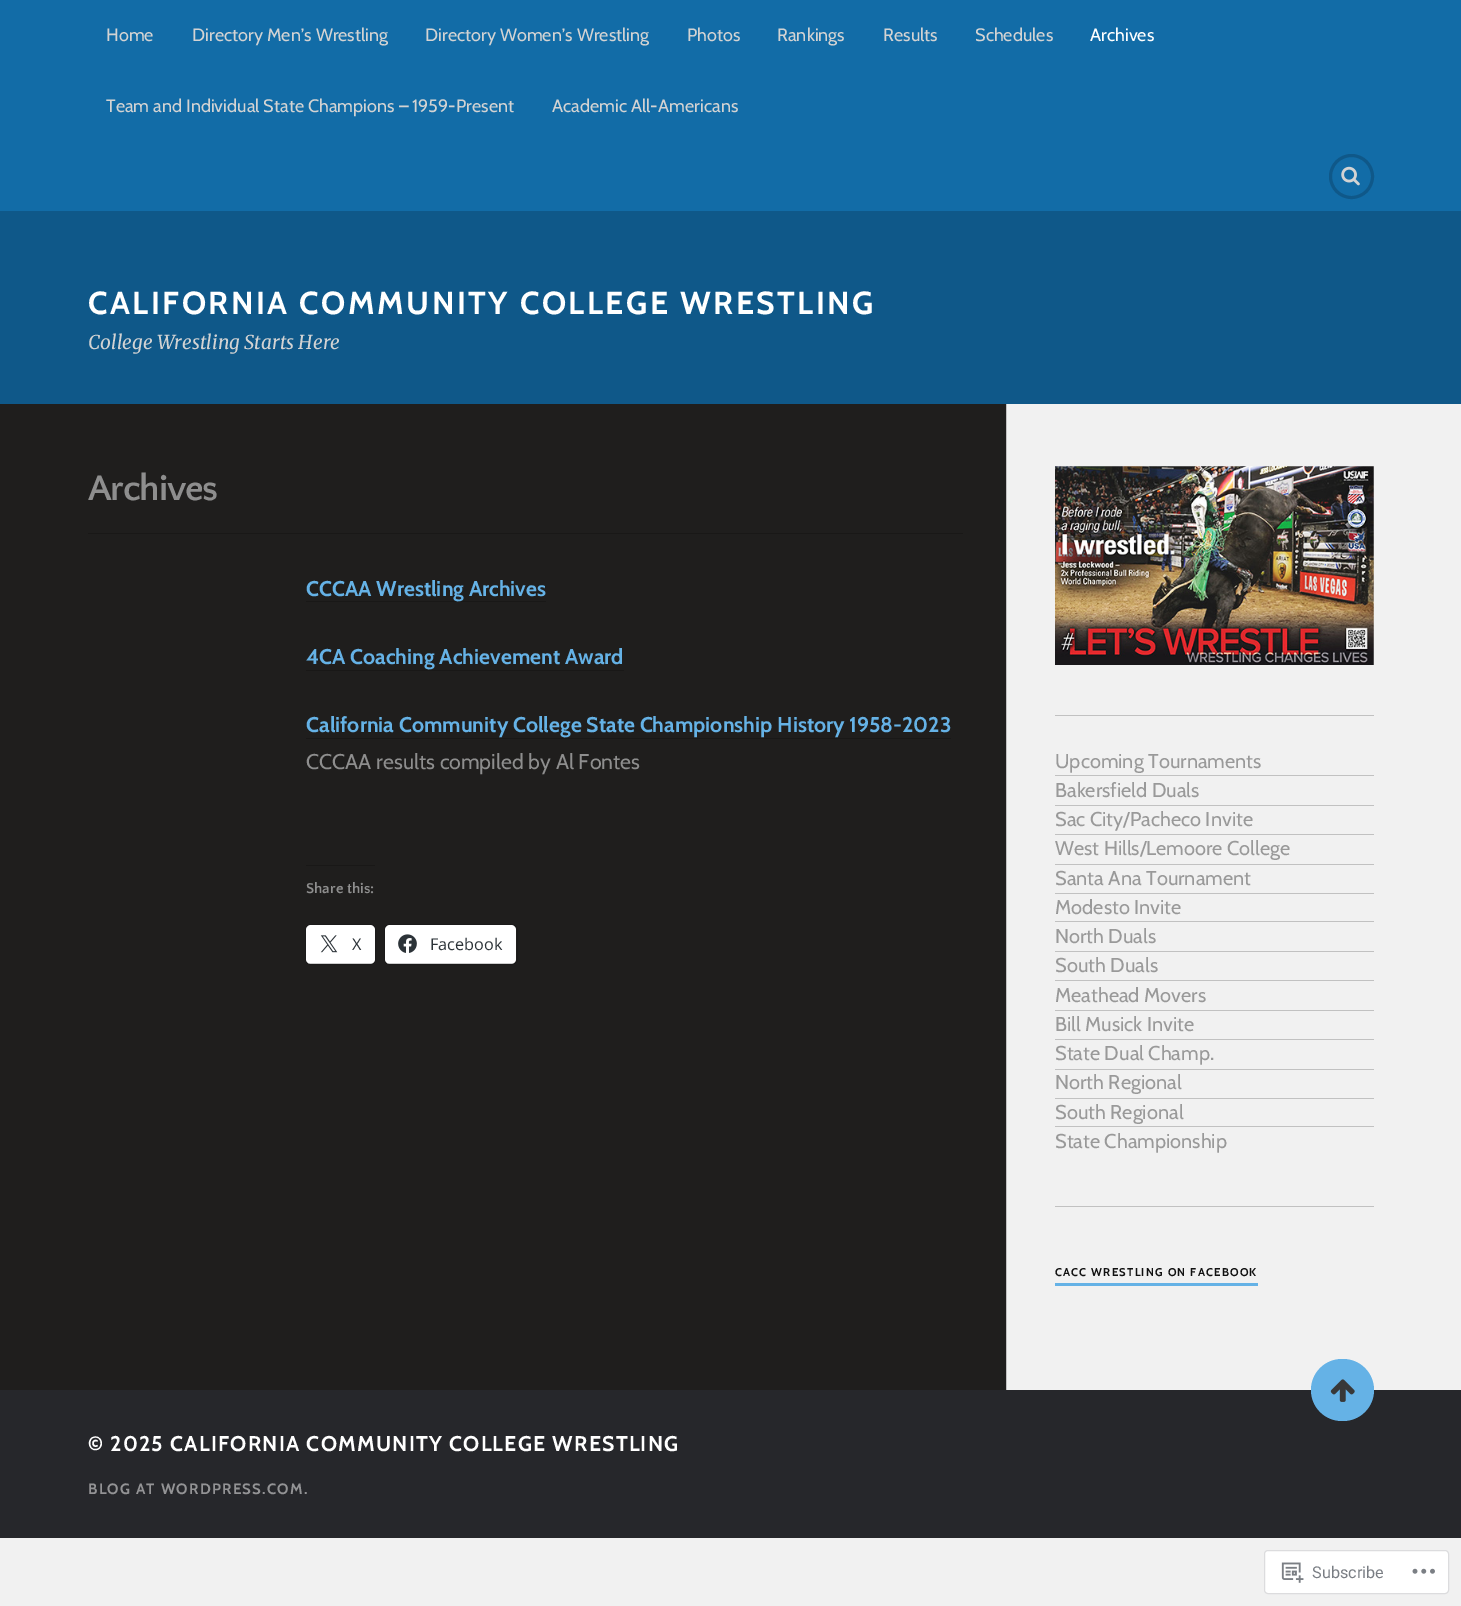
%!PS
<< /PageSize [1461 1606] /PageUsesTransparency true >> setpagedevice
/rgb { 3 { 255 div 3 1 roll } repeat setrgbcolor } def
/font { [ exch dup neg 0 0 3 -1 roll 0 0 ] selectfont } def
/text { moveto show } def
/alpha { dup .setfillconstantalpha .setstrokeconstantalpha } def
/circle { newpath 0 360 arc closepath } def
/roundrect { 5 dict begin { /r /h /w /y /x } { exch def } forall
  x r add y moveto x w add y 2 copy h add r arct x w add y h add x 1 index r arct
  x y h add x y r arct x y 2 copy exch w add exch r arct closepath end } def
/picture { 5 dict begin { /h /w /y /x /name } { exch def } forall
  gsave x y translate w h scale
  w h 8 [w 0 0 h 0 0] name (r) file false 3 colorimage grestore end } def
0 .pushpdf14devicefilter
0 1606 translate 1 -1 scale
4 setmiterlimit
241 241 241 rgb
0 0 1461 1606 rectfill
18 108 167 rgb
0 0 1461 211 rectfill
15 88 137 rgb
3 setlinewidth
1351.5 176.5 21 circle stroke
(img_01.rgb) 1341 166 19 20 picture
0 211 1461 193 rectfill
31 30 29 rgb
0 404 1006 986 rectfill
25 24 23 rgb
88 533 875 1 rectfill
306 601 240 1 rectfill
306 670 318 1 rectfill
306 738 645 1 rectfill
306 865 69 1 rectfill
27 26 26 rgb
1 setlinewidth
305.5 924.5 70 40 5.5 roundrect stroke
255 255 255 rgb
306 925 69 39 5 roundrect fill
0.2 alpha
0 0 0 rgb
309 963 64 1 rectfill
1 alpha
(img_02.rgb) 320 935 18 18 picture
27 26 26 rgb
384.5 924.5 133 40 5.5 roundrect stroke
255 255 255 rgb
385 925 131 39 5 roundrect fill
0.2 alpha
0 0 0 rgb
388 963 126 1 rectfill
1 alpha
(img_03.rgb) 398 934 19 19 picture
193 193 193 rgb
1006 404 1 986 rectfill
(img_04.rgb) 1055 466 319 199 picture
1055 715 319 1 rectfill
1055 775 319 1 rectfill
1055 805 319 1 rectfill
1055 834 319 1 rectfill
1055 864 319 1 rectfill
1055 893 319 1 rectfill
1055 921 319 1 rectfill
1055 951 319 1 rectfill
1055 980 319 1 rectfill
1055 1010 319 1 rectfill
1055 1039 319 1 rectfill
1055 1069 319 1 rectfill
1055 1098 319 1 rectfill
1055 1126 319 1 rectfill
1055 1206 319 1 rectfill
101 178 230 rgb
1055 1283 203 3 rectfill
38 39 43 rgb
0 1390 1461 148 rectfill
101 178 230 rgb
1311 1359 63 62 31 roundrect fill
(img_05.rgb) 1330 1379 25 23 picture
255 255 255 rgb
1264.5 1550.5 184 43 3.5 roundrect gsave fill grestore
220 220 222 rgb
stroke
(img_06.rgb) 1281 1562 23 21 picture
(img_07.rgb) 1412 1568 23 6 picture
/Cabin-Regular 18 font
211 211 211 rgb
(Home) 106 41 text
(Directory Men’s Wrestling) 192 41 text
(Directory Women’s Wrestling) 425 41 text
(Photos) 687 41 text
(Rankings) 777 41 text
(Results) 883 41 text
(Schedules) 975 41 text
255 255 255 rgb
(Archives) 1090 41 text
211 211 211 rgb
(Team and Individual State Champions – 1959-Present) 106 112 text
(Academic All-Americans) 552 112 text
/Cabin-Bold 31.9 font
255 255 255 rgb
88 314 moveto 2.5 0 (CALIFORNIA COMMUNITY COLLEGE WRESTLING) ashow
/Merriweather-LightItalic 19.1 font
211 211 211 rgb
(College Wrestling Starts Here) 88 349 text
/QuattrocentoSans-Bold 37 font
142 142 142 rgb
88 500 moveto -1.25 0 (Archives) ashow
/Cabin-Bold 21.25 font
101 178 230 rgb
(CCCAA Wrestling Archives) 306 596 text
(4CA Coaching Achievement Award) 306 664 text
(California Community College State Championship History 1958-2023) 306 732 text
/Cabin-Regular 21.25 font
142 142 142 rgb
(CCCAA results compiled by Al Fontes) 306 769 text
/QuattrocentoSans-Bold 15 font
(Share this:) 306 893 text
/OpenSans-Regular 16.25 font
44 51 56 rgb
(X) 352 950 text
(Facebook) 430 950 text
/Cabin-Regular 20 font
153 153 153 rgb
(Upcoming Tournaments) 1055 768 text
(Bakersfield Duals) 1055 797 text
(Sac City/Pacheco Invite) 1055 826 text
(West Hills/Lemoore College) 1055 855 text
(Santa Ana Tournament) 1055 885 text
(Modesto Invite) 1055 914 text
(North Duals) 1055 943 text
(South Duals) 1055 972 text
(Meathead Movers) 1055 1002 text
(Bill Musick Invite) 1055 1031 text
(State Dual Champ.) 1055 1060 text
(North Regional) 1055 1089 text
(South Regional) 1055 1119 text
(State Championship) 1055 1148 text
/Cabin-Bold 11.25 font
17 17 17 rgb
1055 1276 moveto 1.25 0 (CACC WRESTLING ON FACEBOOK) ashow
/Cabin-Bold 21.25 font
255 255 255 rgb
88 1451 moveto 1.25 0 (© 2025 CALIFORNIA COMMUNITY COLLEGE WRESTLING) ashow
/Cabin-Bold 15 font
147 147 149 rgb
88 1494 moveto 1.25 0 (BLOG AT WORDPRESS.COM.) ashow
/Roboto-Regular 16.25 font
122 126 132 rgb
(Subscribe) 1312 1578 text
.poppdf14devicefilter showpage
